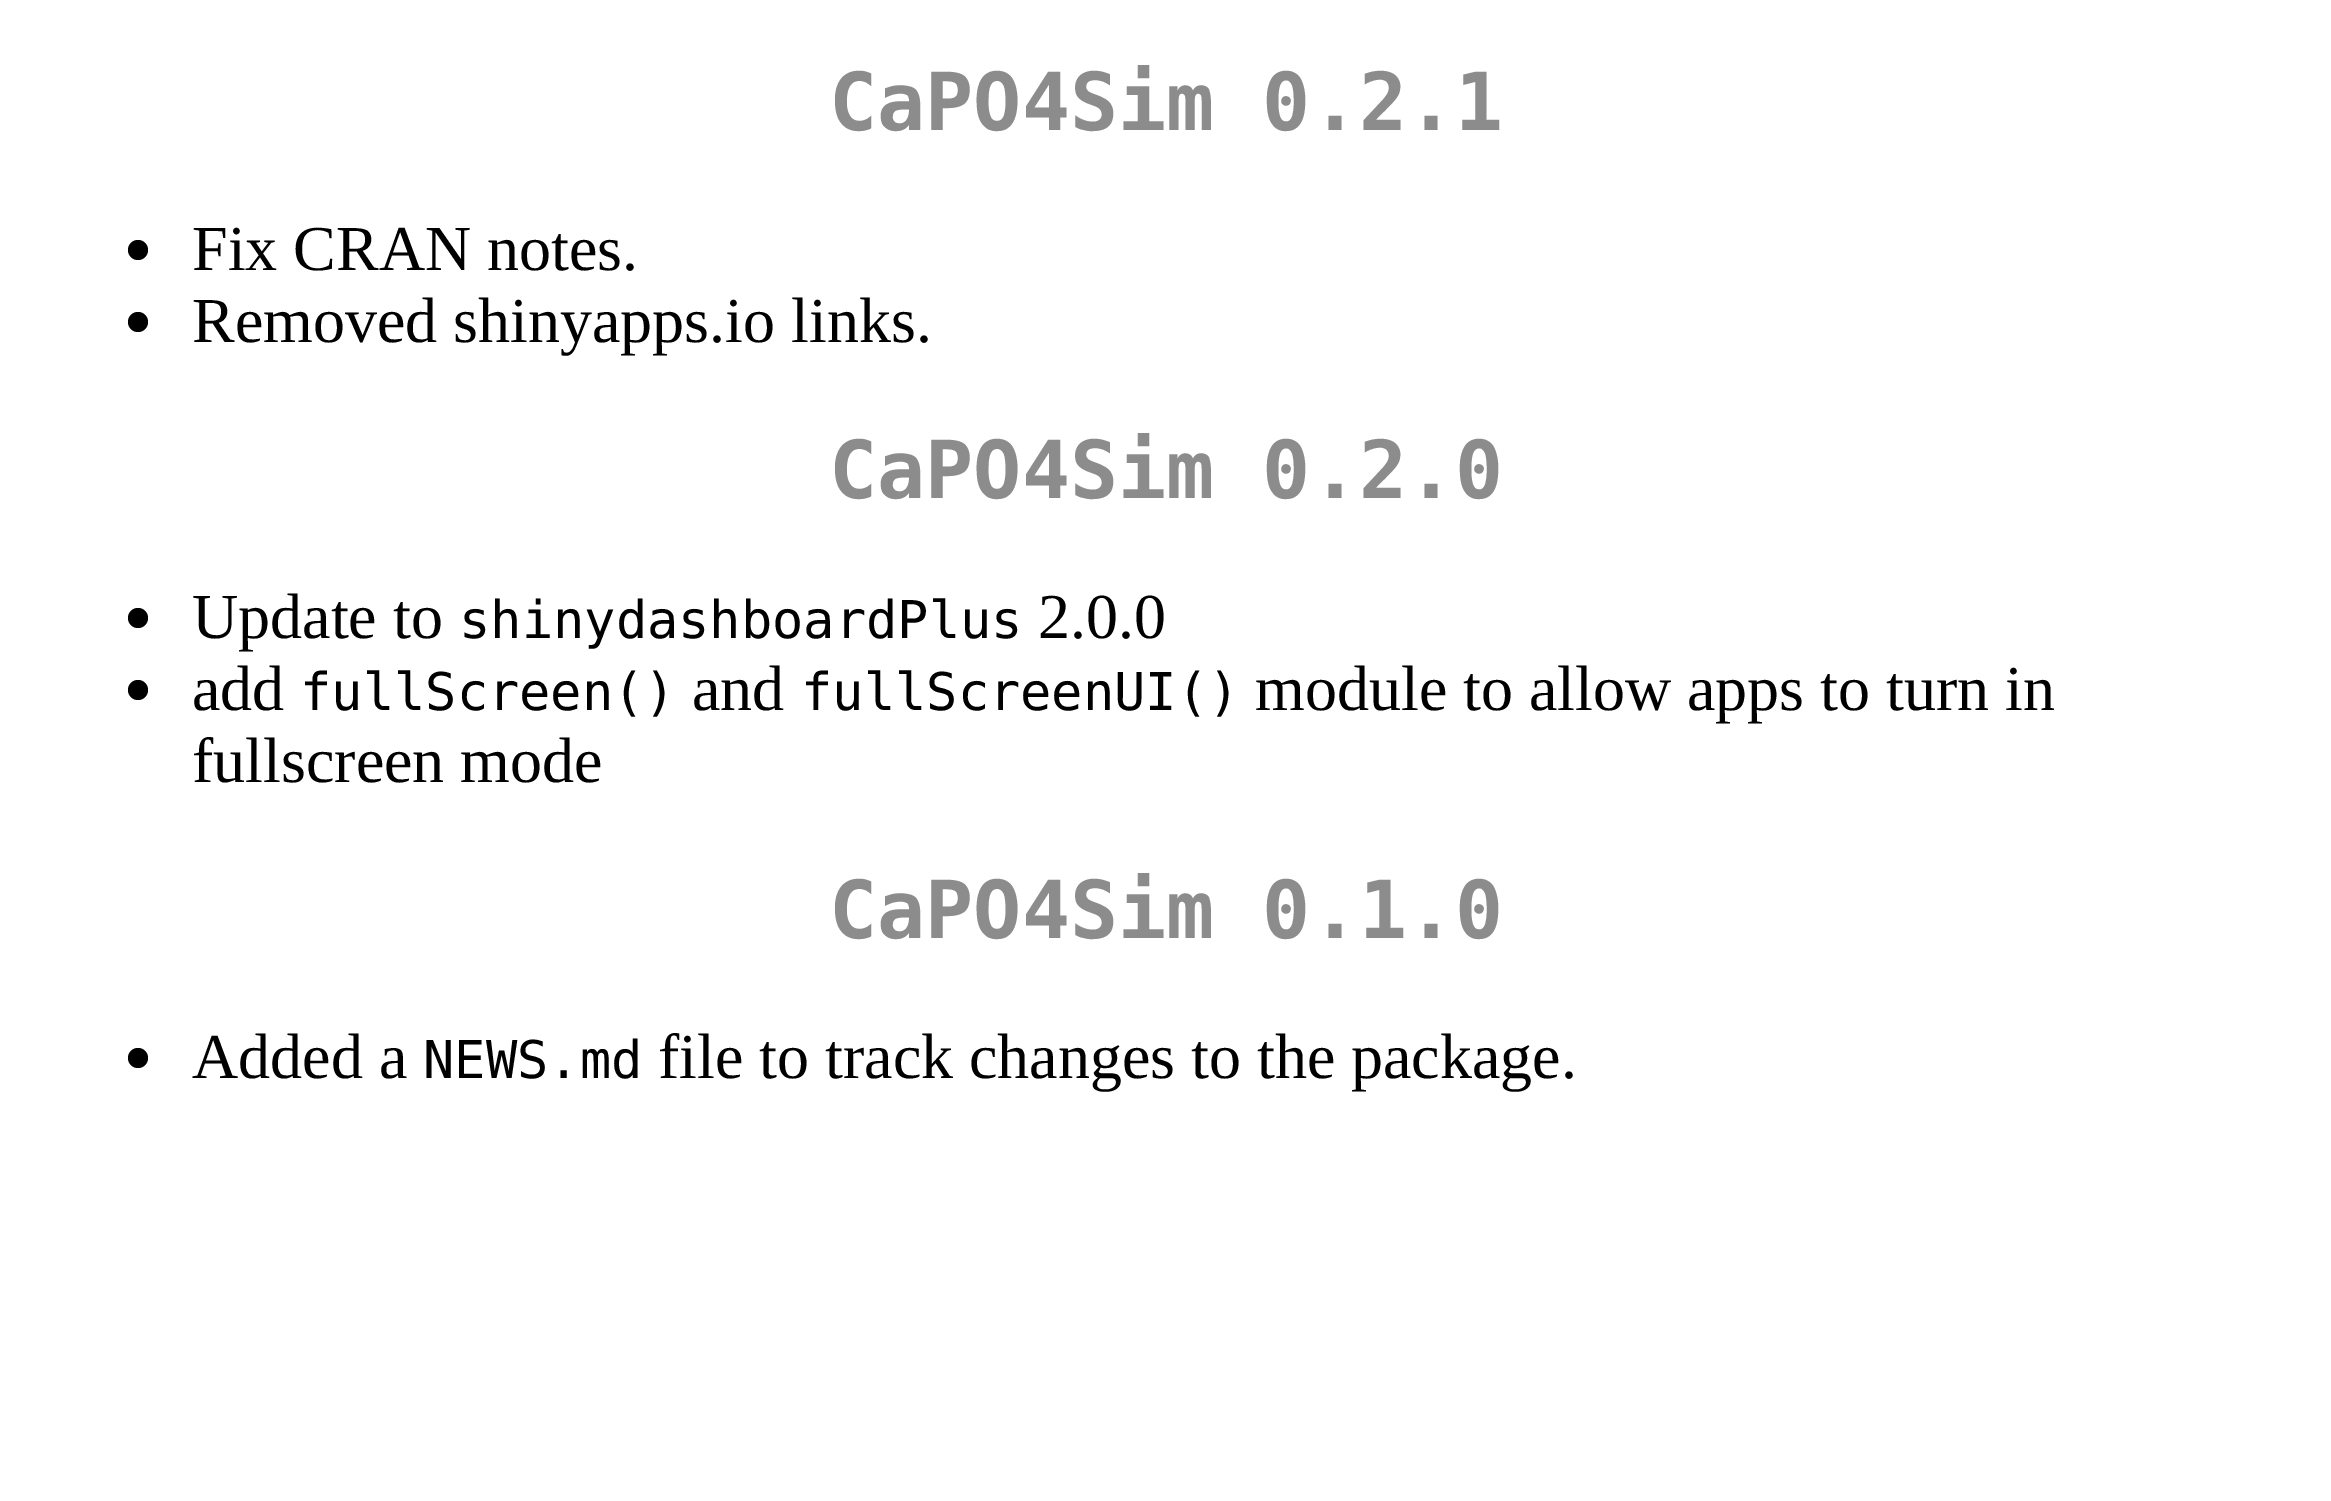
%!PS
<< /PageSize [2331 1501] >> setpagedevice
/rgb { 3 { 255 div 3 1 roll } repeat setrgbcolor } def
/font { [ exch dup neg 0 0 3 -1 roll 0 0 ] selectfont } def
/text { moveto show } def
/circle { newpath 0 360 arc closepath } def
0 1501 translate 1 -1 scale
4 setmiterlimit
255 255 255 rgb
0 0 2331 1501 rectfill
0 0 0 rgb
138 250 10 circle fill
138 322 10 circle fill
138 618 10 circle fill
138 690 10 circle fill
138 1058 10 circle fill
/DejaVuSansMono-Bold 80 font
140 140 140 rgb
(CaPO4Sim 0.2.1) 829 130 text
/LiberationSerif-Regular 64 font
0 0 0 rgb
(Fix CRAN notes.) 192 270 text
(Removed shinyapps.io links.) 192 342 text
/DejaVuSansMono-Bold 80 font
140 140 140 rgb
(CaPO4Sim 0.2.0) 829 498 text
/LiberationSerif-Regular 64 font
0 0 0 rgb
(Update to) 192 638 text
/DejaVuSansMono-Regular 52 font
(shinydashboardPlus) 459 638 text
/LiberationSerif-Regular 64 font
(2.0.0) 1038 638 text
(add) 192 710 text
/DejaVuSansMono-Regular 52 font
(fullScreen\(\)) 300 710 text
/LiberationSerif-Regular 64 font
(and) 692 710 text
/DejaVuSansMono-Regular 52 font
(fullScreenUI\(\)) 801 710 text
/LiberationSerif-Regular 64 font
(module to allow apps to turn in) 1255 710 text
(fullscreen mode) 192 782 text
/DejaVuSansMono-Bold 80 font
140 140 140 rgb
(CaPO4Sim 0.1.0) 829 938 text
/LiberationSerif-Regular 64 font
0 0 0 rgb
(Added a) 192 1078 text
/DejaVuSansMono-Regular 52 font
(NEWS.md) 423 1078 text
/LiberationSerif-Regular 64 font
(file to track changes to the package.) 658 1078 text
showpage
